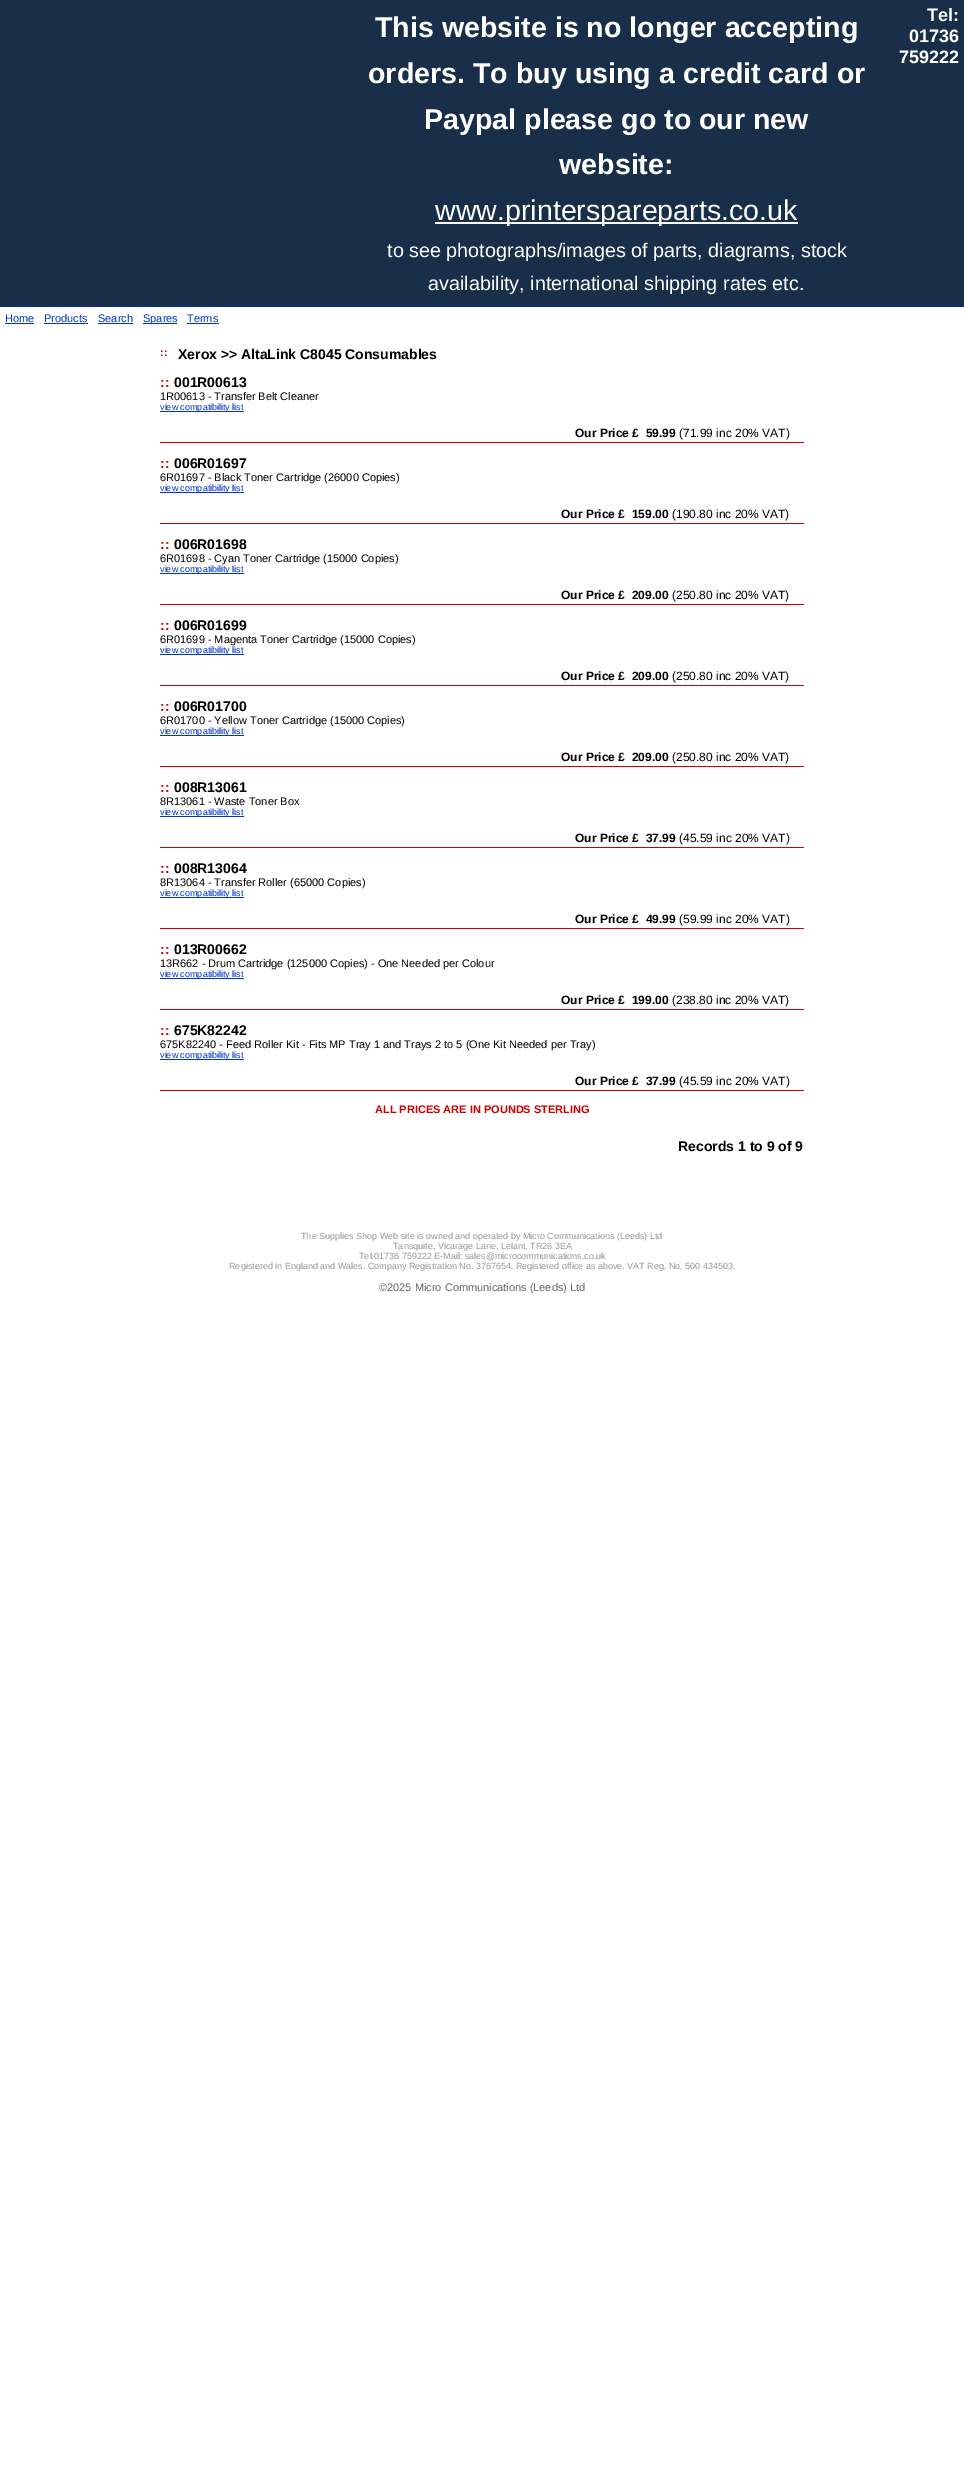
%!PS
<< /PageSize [964 2466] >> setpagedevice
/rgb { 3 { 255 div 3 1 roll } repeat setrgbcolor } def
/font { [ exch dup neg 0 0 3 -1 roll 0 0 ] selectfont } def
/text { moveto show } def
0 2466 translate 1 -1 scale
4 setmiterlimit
255 255 255 rgb
0 0 964 2466 rectfill
24 46 73 rgb
0 0 964 306 rectfill
255 255 255 rgb
435 222 363 2 rectfill
0 51 153 rgb
0 306 964 1 rectfill
0 51 204 rgb
5 323 29 1 rectfill
44 323 44 1 rectfill
98 323 35 1 rectfill
143 323 34 1 rectfill
187 323 32 1 rectfill
160 411 84 1 rectfill
204 0 0 rgb
160 442 644 1 rectfill
0 51 204 rgb
160 492 84 1 rectfill
204 0 0 rgb
160 523 644 1 rectfill
0 51 204 rgb
160 573 84 1 rectfill
204 0 0 rgb
160 604 644 1 rectfill
0 51 204 rgb
160 654 84 1 rectfill
204 0 0 rgb
160 685 644 1 rectfill
0 51 204 rgb
160 735 84 1 rectfill
204 0 0 rgb
160 766 644 1 rectfill
0 51 204 rgb
160 816 84 1 rectfill
204 0 0 rgb
160 847 644 1 rectfill
0 51 204 rgb
160 897 84 1 rectfill
204 0 0 rgb
160 928 644 1 rectfill
0 51 204 rgb
160 978 84 1 rectfill
204 0 0 rgb
160 1009 644 1 rectfill
0 51 204 rgb
160 1059 84 1 rectfill
204 0 0 rgb
160 1090 644 1 rectfill
/LiberationSans-Bold 28.6 font
255 255 255 rgb
(This website is no longer accepting) 375 37 text
(orders. To buy using a credit card or) 368 83 text
(Paypal please go to our new) 424 129 text
(website:) 559 174 text
/LiberationSans-Regular 28.6 font
(www.printerspareparts.co.uk) 435 220 text
/LiberationSans-Regular 19.8 font
(to see photographs/images of parts, diagrams, stock) 387 257 text
(availability, international shipping rates etc.) 428 290 text
/LiberationSans-Bold 18 font
(Tel:) 927 21 text
(01736) 909 42 text
(759222) 899 63 text
/LiberationSans-Regular 11 font
0 51 204 rgb
(Home) 5 322 text
(Products) 44 322 text
(Search) 98 322 text
(Spares) 143 322 text
(Terms) 187 322 text
/LiberationSans-Bold 11 font
204 0 0 rgb
(::) 160 356 text
/LiberationSans-Bold 14 font
0 0 0 rgb
(Xerox >> AltaLink C8045 Consumables) 178 359 text
204 0 0 rgb
(::) 160 387 text
0 0 0 rgb
(001R00613) 174 387 text
/LiberationSans-Regular 11 font
(1R00613 - Transfer Belt Cleaner) 160 400 text
/LiberationSans-Regular 9 font
0 51 204 rgb
(view compatibility list) 160 410 text
/LiberationSans-Bold 12 font
0 0 0 rgb
(Our Price £  59.99) 575 437 text
/LiberationSans-Regular 12 font
(\(71.99 inc 20% VAT\)) 679 437 text
/LiberationSans-Bold 14 font
204 0 0 rgb
(::) 160 468 text
0 0 0 rgb
(006R01697) 174 468 text
/LiberationSans-Regular 11 font
(6R01697 - Black Toner Cartridge \(26000 Copies\)) 160 481 text
/LiberationSans-Regular 9 font
0 51 204 rgb
(view compatibility list) 160 491 text
/LiberationSans-Bold 12 font
0 0 0 rgb
(Our Price £  159.00) 561 518 text
/LiberationSans-Regular 12 font
(\(190.80 inc 20% VAT\)) 672 518 text
/LiberationSans-Bold 14 font
204 0 0 rgb
(::) 160 549 text
0 0 0 rgb
(006R01698) 174 549 text
/LiberationSans-Regular 11 font
(6R01698 - Cyan Toner Cartridge \(15000 Copies\)) 160 562 text
/LiberationSans-Regular 9 font
0 51 204 rgb
(view compatibility list) 160 572 text
/LiberationSans-Bold 12 font
0 0 0 rgb
(Our Price £  209.00) 561 599 text
/LiberationSans-Regular 12 font
(\(250.80 inc 20% VAT\)) 672 599 text
/LiberationSans-Bold 14 font
204 0 0 rgb
(::) 160 630 text
0 0 0 rgb
(006R01699) 174 630 text
/LiberationSans-Regular 11 font
(6R01699 - Magenta Toner Cartridge \(15000 Copies\)) 160 643 text
/LiberationSans-Regular 9 font
0 51 204 rgb
(view compatibility list) 160 653 text
/LiberationSans-Bold 12 font
0 0 0 rgb
(Our Price £  209.00) 561 680 text
/LiberationSans-Regular 12 font
(\(250.80 inc 20% VAT\)) 672 680 text
/LiberationSans-Bold 14 font
204 0 0 rgb
(::) 160 711 text
0 0 0 rgb
(006R01700) 174 711 text
/LiberationSans-Regular 11 font
(6R01700 - Yellow Toner Cartridge \(15000 Copies\)) 160 724 text
/LiberationSans-Regular 9 font
0 51 204 rgb
(view compatibility list) 160 734 text
/LiberationSans-Bold 12 font
0 0 0 rgb
(Our Price £  209.00) 561 761 text
/LiberationSans-Regular 12 font
(\(250.80 inc 20% VAT\)) 672 761 text
/LiberationSans-Bold 14 font
204 0 0 rgb
(::) 160 792 text
0 0 0 rgb
(008R13061) 174 792 text
/LiberationSans-Regular 11 font
(8R13061 - Waste Toner Box) 160 805 text
/LiberationSans-Regular 9 font
0 51 204 rgb
(view compatibility list) 160 815 text
/LiberationSans-Bold 12 font
0 0 0 rgb
(Our Price £  37.99) 575 842 text
/LiberationSans-Regular 12 font
(\(45.59 inc 20% VAT\)) 679 842 text
/LiberationSans-Bold 14 font
204 0 0 rgb
(::) 160 873 text
0 0 0 rgb
(008R13064) 174 873 text
/LiberationSans-Regular 11 font
(8R13064 - Transfer Roller \(65000 Copies\)) 160 886 text
/LiberationSans-Regular 9 font
0 51 204 rgb
(view compatibility list) 160 896 text
/LiberationSans-Bold 12 font
0 0 0 rgb
(Our Price £  49.99) 575 923 text
/LiberationSans-Regular 12 font
(\(59.99 inc 20% VAT\)) 679 923 text
/LiberationSans-Bold 14 font
204 0 0 rgb
(::) 160 954 text
0 0 0 rgb
(013R00662) 174 954 text
/LiberationSans-Regular 11 font
(13R662 - Drum Cartridge \(125000 Copies\) - One Needed per Colour) 160 967 text
/LiberationSans-Regular 9 font
0 51 204 rgb
(view compatibility list) 160 977 text
/LiberationSans-Bold 12 font
0 0 0 rgb
(Our Price £  199.00) 561 1004 text
/LiberationSans-Regular 12 font
(\(238.80 inc 20% VAT\)) 672 1004 text
/LiberationSans-Bold 14 font
204 0 0 rgb
(::) 160 1035 text
0 0 0 rgb
(675K82242) 174 1035 text
/LiberationSans-Regular 11 font
(675K82240 - Feed Roller Kit - Fits MP Tray 1 and Trays 2 to 5 \(One Kit Needed per Tray\)) 160 1048 text
/LiberationSans-Regular 9 font
0 51 204 rgb
(view compatibility list) 160 1058 text
/LiberationSans-Bold 12 font
0 0 0 rgb
(Our Price £  37.99) 575 1085 text
/LiberationSans-Regular 12 font
(\(45.59 inc 20% VAT\)) 679 1085 text
/LiberationSans-Bold 11 font
204 0 0 rgb
(ALL PRICES ARE IN POUNDS STERLING) 375 1113 text
/LiberationSans-Bold 14 font
0 0 0 rgb
(Records 1 to 9 of 9) 678 1151 text
/LiberationSans-Regular 9 font
153 153 153 rgb
(The Supplies Shop Web site is owned and operated by Micro Communications \(Leeds\) Ltd) 301 1239 text
(Tansquite, Vicarage Lane, Lelant, TR26 3EA) 393 1249 text
(Tel:01736 759222 E-Mail: sales@microcommunications.co.uk) 359 1259 text
(Registered in England and Wales. Company Registration No. 3767654. Registered office as above. VAT Reg. No. 500 434503.) 229 1269 text
/LiberationSans-Regular 11 font
102 102 102 rgb
(©2025 Micro Communications \(Leeds\) Ltd) 379 1291 text
showpage
